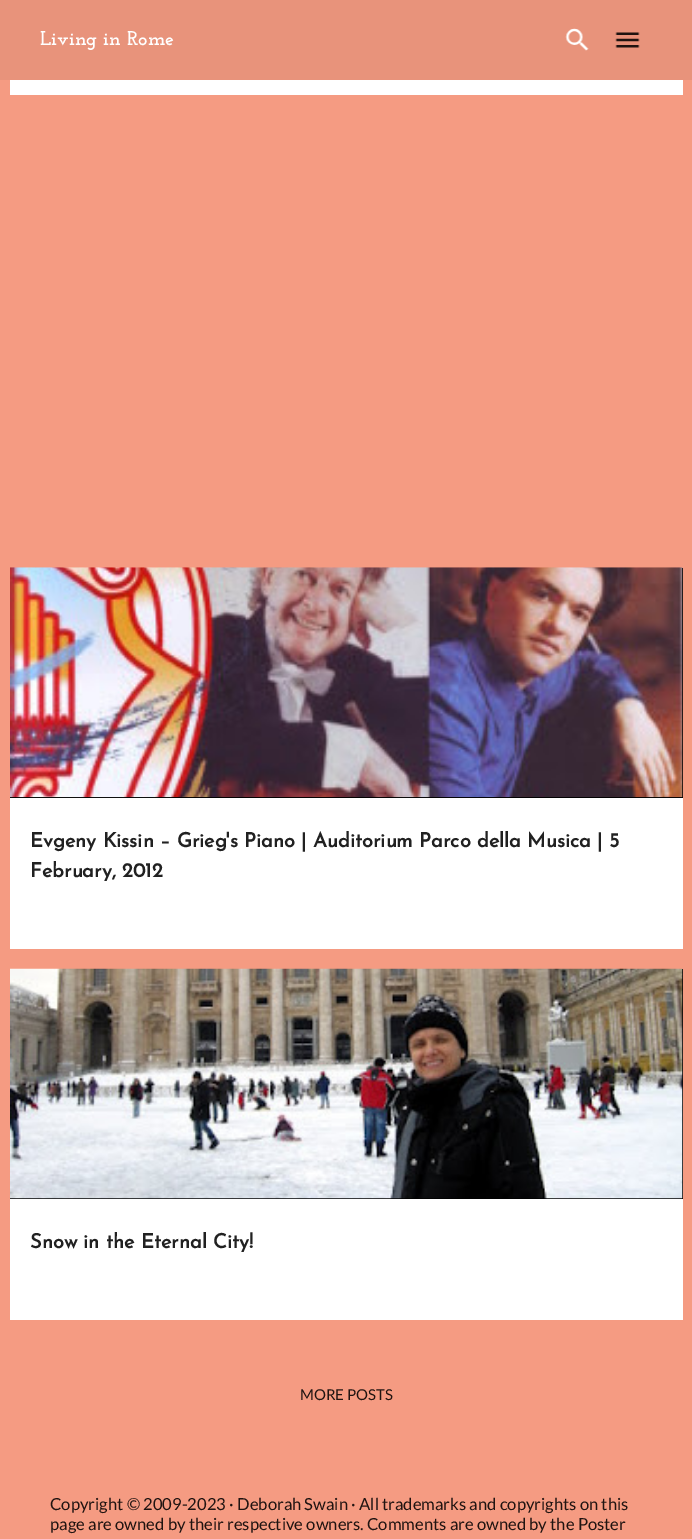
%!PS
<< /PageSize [692 1539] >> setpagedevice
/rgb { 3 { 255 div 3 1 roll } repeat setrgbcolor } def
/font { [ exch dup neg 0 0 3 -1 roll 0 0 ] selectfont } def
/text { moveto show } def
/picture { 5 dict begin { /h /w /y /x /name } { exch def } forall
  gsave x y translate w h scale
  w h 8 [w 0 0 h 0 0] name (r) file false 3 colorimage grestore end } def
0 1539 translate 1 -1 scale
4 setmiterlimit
245 155 130 rgb
0 0 692 1539 rectfill
232 147 123 rgb
0 0 692 80 rectfill
(img_01.rgb) 565 28 24 23 picture
(img_02.rgb) 615 32 25 16 picture
255 255 255 rgb
10 80 673 15 rectfill
10 798 673 151 rectfill
0 0 0 rgb
10 568 673 230 rectfill
(img_03.rgb) 10 567 673 231 picture
255 255 255 rgb
10 1199 673 121 rectfill
0 0 0 rgb
10 969 673 230 rectfill
(img_04.rgb) 10 968 673 231 picture
/JosefinSlab-Thin 20 font
255 255 255 rgb
(Living in Rome) 40 45 text
/JosefinSans-Bold 20 font
33 33 33 rgb
(Evgeny Kissin – Grieg's Piano | Auditorium Parco della Musica | 5) 30 847 text
(February, 2012) 30 877 text
(Snow in the Eternal City!) 30 1248 text
/Lato-Regular 15 font
32 20 17 rgb
(MORE POSTS) 300 1400 text
/Lato-Regular 16.65 font
(Copyright © 2009-2023 · Deborah Swain · All trademarks and copyrights on this) 50 1510 text
(page are owned by their respective owners. Comments are owned by the Poster) 50 1530 text
showpage
